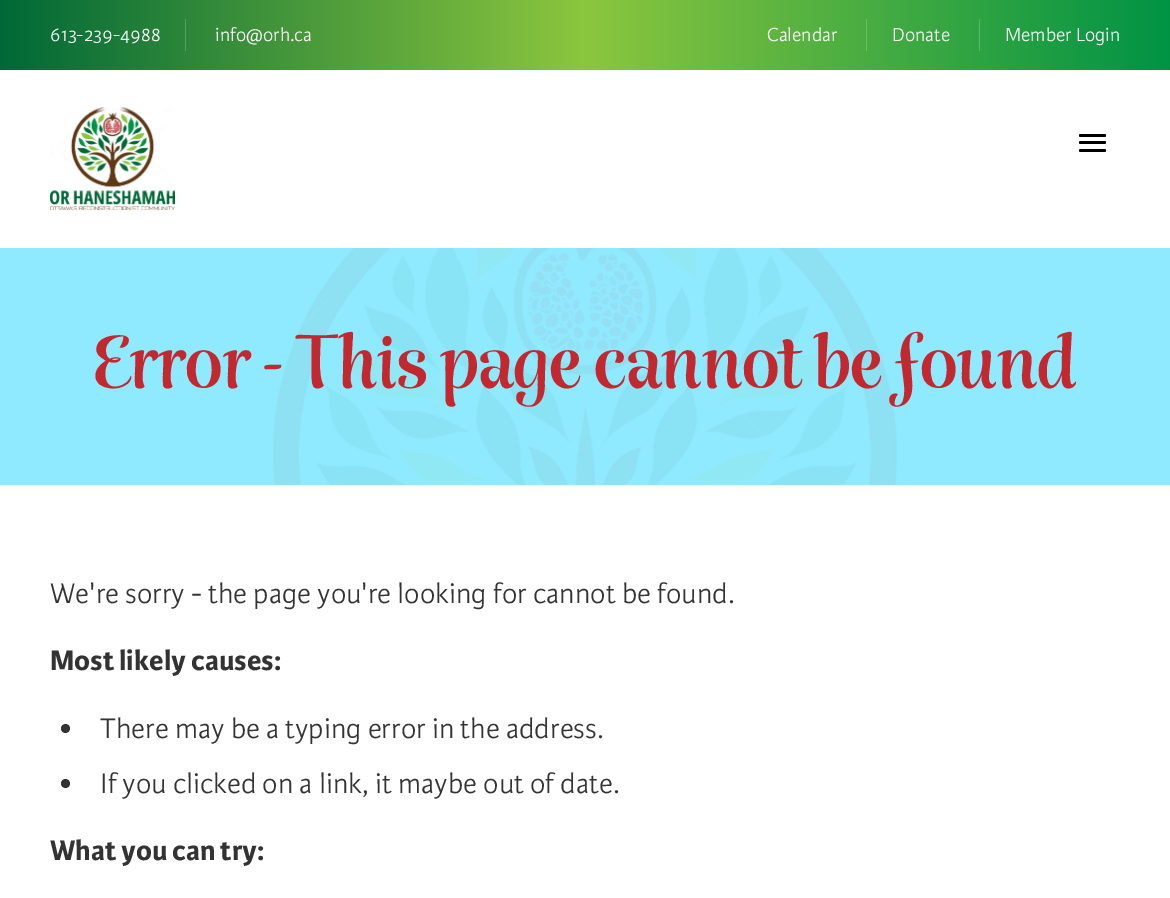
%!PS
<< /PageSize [1170 898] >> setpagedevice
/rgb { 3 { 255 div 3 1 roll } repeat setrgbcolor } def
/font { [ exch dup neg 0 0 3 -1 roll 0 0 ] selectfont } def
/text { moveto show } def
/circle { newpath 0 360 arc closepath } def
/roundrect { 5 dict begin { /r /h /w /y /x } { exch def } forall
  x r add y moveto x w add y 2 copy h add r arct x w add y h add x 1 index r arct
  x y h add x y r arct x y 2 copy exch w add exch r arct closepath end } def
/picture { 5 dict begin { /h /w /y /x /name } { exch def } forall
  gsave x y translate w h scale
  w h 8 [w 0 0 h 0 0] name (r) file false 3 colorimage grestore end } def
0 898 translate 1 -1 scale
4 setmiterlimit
255 255 255 rgb
0 0 1170 898 rectfill
gsave 0 0 moveto 1170 0 rlineto 0 70 rlineto -1170 0 rlineto closepath clip newpath
<< /ShadingType 2 /ColorSpace /DeviceRGB /Coords [0 35 1170 35] /Extend [true true] /Function << /FunctionType 3 /Domain [0 1] /Functions [<< /FunctionType 2 /Domain [0 1] /C0 [0 0.408 0.216] /C1 [0.549 0.776 0.243] /N 1 >> << /FunctionType 2 /Domain [0 1] /C0 [0.549 0.776 0.243] /C1 [0 0.576 0.271] /N 1 >>] /Bounds [0.5] /Encode [0 1 0 1] >> >> shfill grestore
86 158 97 rgb
185 19 1 32 rectfill
109 189 103 rgb
866 19 1 32 rectfill
88 182 105 rgb
979 19 1 32 rectfill
(img_01.rgb) 50 107 125 103 picture
0 0 0 rgb
1079 134 27 3 1.5 roundrect fill
1079 141 27 3 1.5 roundrect fill
1079 149 27 3 1.5 roundrect fill
144 234 255 rgb
0 248 1170 237 rectfill
(img_02.rgb) 273 247 624 238 picture
51 51 51 rgb
65.5 728.5 4.5 circle fill
65.5 783.5 4.5 circle fill
/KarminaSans-Light 20 font
255 255 255 rgb
(613-239-4988) 50 41 text
(info@orh.ca) 215 41 text
(Calendar) 767 41 text
(Donate) 892 41 text
(Member Login) 1005 41 text
/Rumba-Regular 75 font
195 40 46 rgb
(Error - This page cannot be found) 94 388 text
/KarminaSans-Light 30 font
51 51 51 rgb
(We're sorry - the page you're looking for cannot be found.) 50 603 text
/KarminaSans-Bold 30 font
(Most likely causes:) 50 670 text
/KarminaSans-Light 30 font
(There may be a typing error in the address.) 100 738 text
(If you clicked on a link, it maybe out of date.) 100 793 text
/KarminaSans-Bold 30 font
(What you can try:) 50 860 text
showpage
